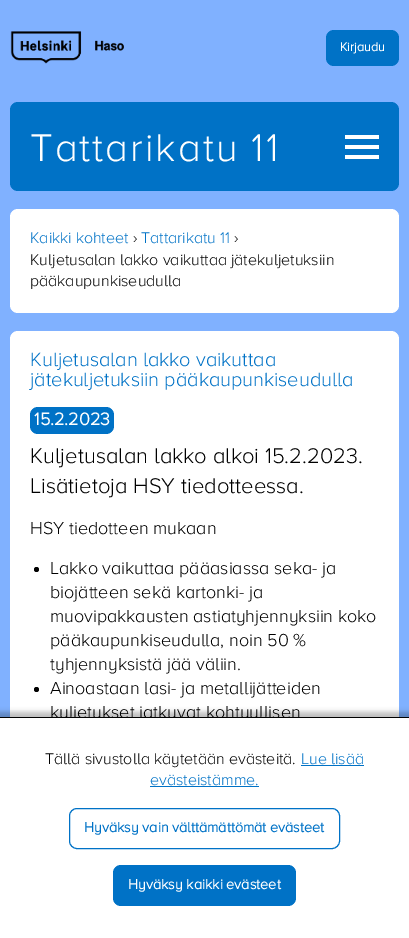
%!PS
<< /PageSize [409 938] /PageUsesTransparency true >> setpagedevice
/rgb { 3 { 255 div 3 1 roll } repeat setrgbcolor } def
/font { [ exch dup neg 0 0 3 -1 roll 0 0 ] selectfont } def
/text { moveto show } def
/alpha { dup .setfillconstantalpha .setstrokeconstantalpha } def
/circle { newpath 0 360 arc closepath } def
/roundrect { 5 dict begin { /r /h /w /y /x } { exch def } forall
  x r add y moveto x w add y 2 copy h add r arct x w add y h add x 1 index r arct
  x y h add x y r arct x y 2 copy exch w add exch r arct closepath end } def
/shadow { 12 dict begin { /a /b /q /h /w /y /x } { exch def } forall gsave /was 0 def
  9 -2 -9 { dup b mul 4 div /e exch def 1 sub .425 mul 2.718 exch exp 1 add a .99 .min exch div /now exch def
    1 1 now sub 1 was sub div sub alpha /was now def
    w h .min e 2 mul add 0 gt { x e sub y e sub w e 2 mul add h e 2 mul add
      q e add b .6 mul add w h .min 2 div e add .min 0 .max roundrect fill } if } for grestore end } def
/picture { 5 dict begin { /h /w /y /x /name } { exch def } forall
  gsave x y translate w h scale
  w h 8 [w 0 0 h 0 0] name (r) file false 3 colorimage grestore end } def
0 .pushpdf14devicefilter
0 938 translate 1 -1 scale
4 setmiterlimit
128 177 255 rgb
0 0 409 938 rectfill
(img_01.rgb) 10 31 114 33 picture
0 114 198 rgb
326 30 73 36 8 roundrect fill
10 102 389 89 8 roundrect fill
255 255 255 rgb
345 135 34 4 rectfill
345 145 34 4 rectfill
345 155 34 4 rectfill
10 209 389 104 8 roundrect fill
10 331 389 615 8 roundrect fill
0 114 198 rgb
30 407 84 27 8 roundrect fill
0 0 0 rgb
36.5 569.5 2.5 circle fill
36.5 689.5 2.5 circle fill
-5 712 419 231 0 2.5 0.25 shadow
0 717 409 1 rectfill
/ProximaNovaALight-Bold 12.5 font
255 255 255 rgb
(Kirjaudu) 340 51 text
/ProximaNovaALight-Regular 40 font
30 161 moveto 2 0 (Tattarikatu 11) ashow
/ProximaNovaALight-Regular 16 font
0 114 198 rgb
(Kaikki kohteet) 30 243 text
0 0 0 rgb
(›) 133 243 text
0 114 198 rgb
(Tattarikatu 11) 141 243 text
0 0 0 rgb
(›) 234 243 text
(Kuljetusalan lakko vaikuttaa jätekuljetuksiin) 30 265 text
(pääkaupunkiseudulla) 30 286 text
/ProximaNovaALight-Regular 20 font
0 114 198 rgb
(Kuljetusalan lakko vaikuttaa) 30 366 text
(jätekuljetuksiin pääkaupunkiseudulla) 30 386 text
/ProximaNovaALight-Bold 18 font
255 255 255 rgb
(15.2.2023) 34 425 text
/ProximaNovaALight-Regular 22 font
0 0 0 rgb
(Kuljetusalan lakko alkoi 15.2.2023.) 30 463 text
(Lisätietoja HSY tiedotteessa.) 30 493 text
/ProximaNovaALight-Regular 18 font
(HSY tiedotteen mukaan) 30 534 text
(Lakko vaikuttaa pääasiassa seka- ja) 50 574 text
(biojätteen sekä kartonki- ja) 50 598 text
(muovipakkausten astiatyhjennyksiin koko) 50 622 text
(pääkaupunkiseudulla, noin 50 %) 50 646 text
(tyhjennyksistä jää väliin.) 50 670 text
(Ainoastaan lasi- ja metallijätteiden) 50 694 text
(kuljetukset jatkuvat kohtuullisen) 50 718 text
255 255 255 rgb
0 718 409 220 rectfill
/ProximaNovaALight-Regular 16 font
0 0 0 rgb
(Tällä sivustolla käytetään evästeitä.) 45 764 text
0 114 198 rgb
(Lue lisää) 301 764 text
301 765 63 1 rectfill
(evästeistämme.) 150 785 text
150 786 109 1 rectfill
69.5 808.5 270 40 7.5 roundrect stroke
/ProximaNovaALight-Bold 14.4 font
(Hyväksy vain välttämättömät evästeet) 84 832 text
113 865 183 41 8 roundrect fill
255 255 255 rgb
(Hyväksy kaikki evästeet) 128 889 text
.poppdf14devicefilter showpage
